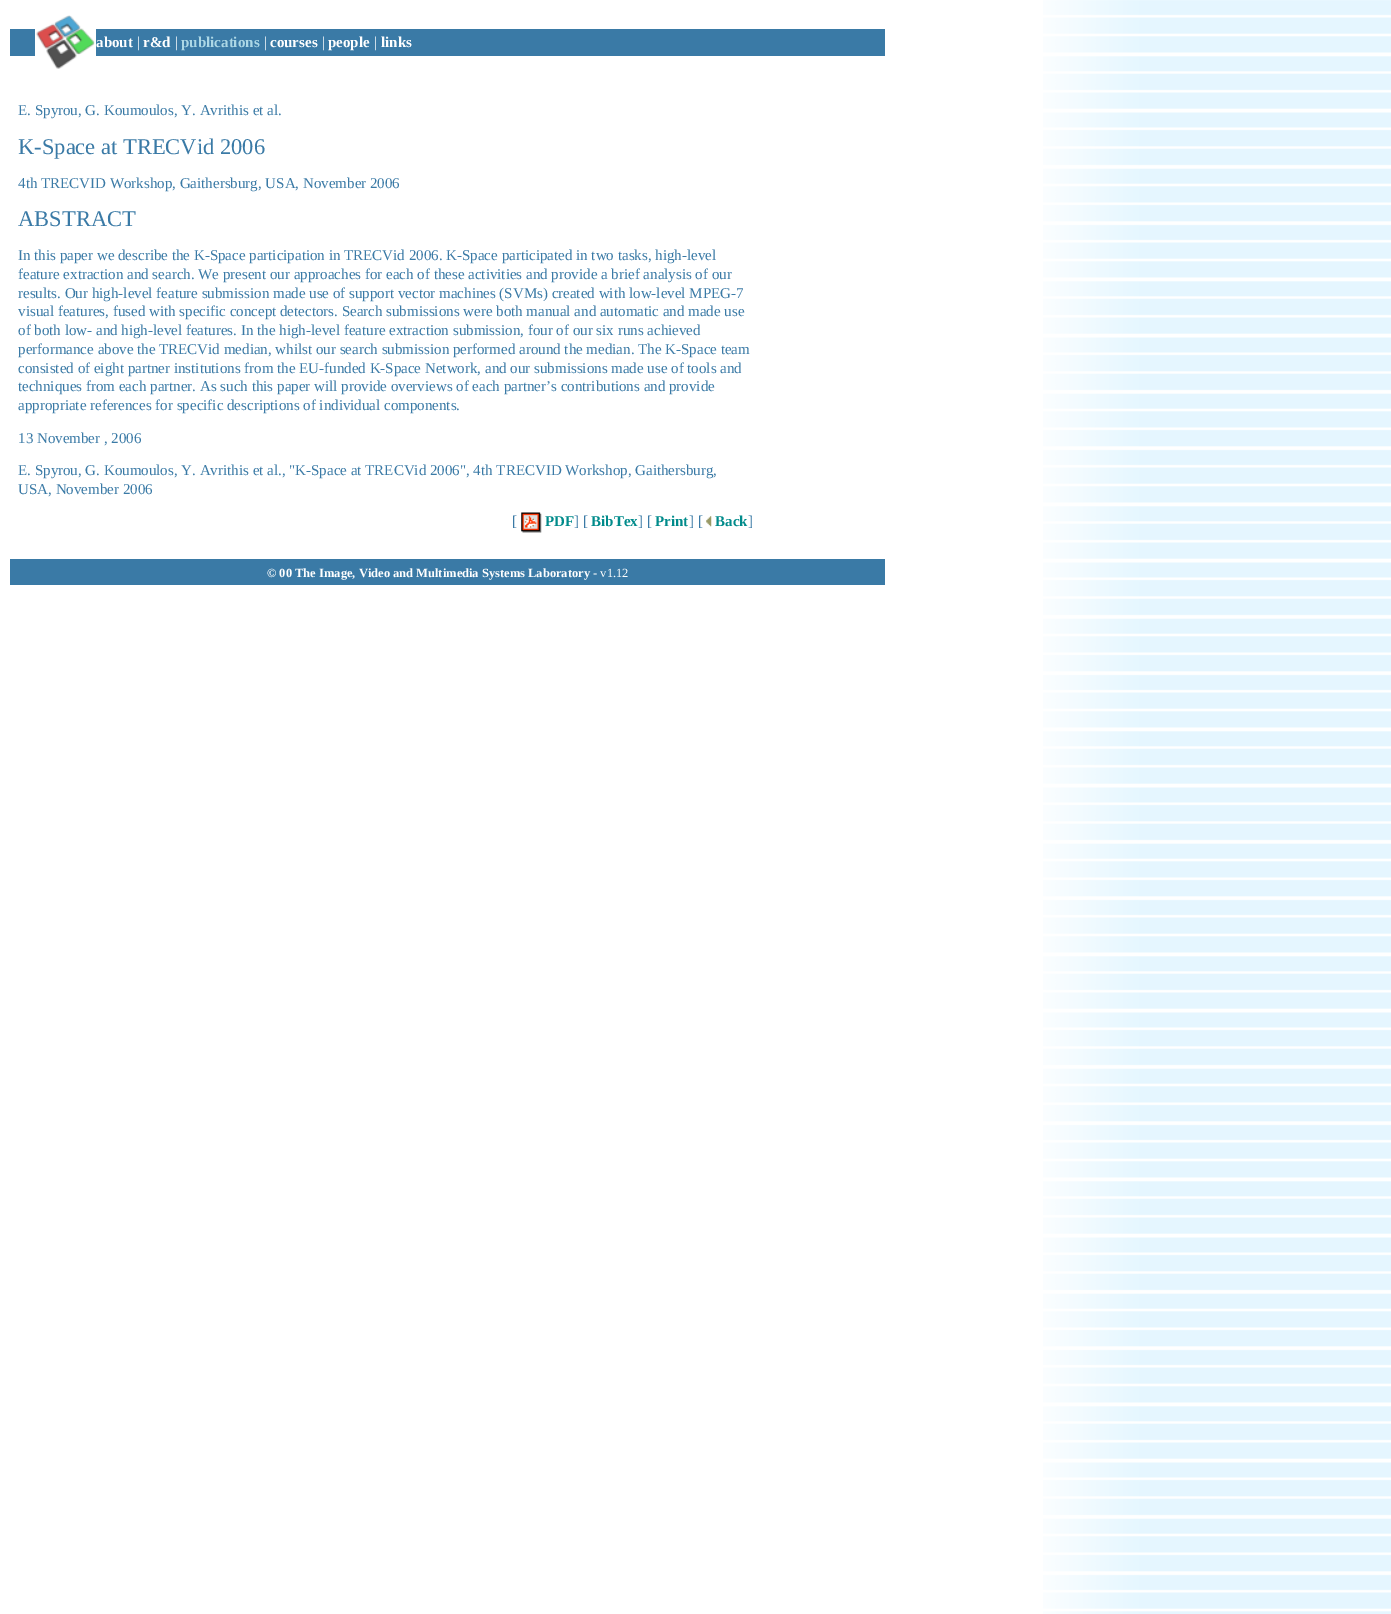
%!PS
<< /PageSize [1391 1614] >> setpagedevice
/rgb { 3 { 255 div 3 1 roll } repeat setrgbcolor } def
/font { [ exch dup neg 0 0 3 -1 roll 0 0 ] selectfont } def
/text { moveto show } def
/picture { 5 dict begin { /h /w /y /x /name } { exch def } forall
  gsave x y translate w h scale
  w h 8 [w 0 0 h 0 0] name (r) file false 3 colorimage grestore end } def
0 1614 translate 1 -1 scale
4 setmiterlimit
255 255 255 rgb
0 0 1391 1614 rectfill
(img_01.rgb) 1043 0 348 1614 picture
(img_02.rgb) 36 15 59 54 picture
58 122 166 rgb
10 29 25 27 rectfill
96 29 789 27 rectfill
(img_03.rgb) 521 512 21 21 picture
(img_04.rgb) 706 516 6 11 picture
10 559 875 26 rectfill
/LiberationSerif-Bold 15 font
255 255 255 rgb
(about) 96 47 text
/LiberationSerif-Regular 15 font
(|) 137 47 text
/LiberationSerif-Bold 15 font
(r&d) 143 47 text
/LiberationSerif-Regular 15 font
(|) 175 47 text
/LiberationSerif-Bold 15 font
173 216 230 rgb
(publications) 181 47 text
/LiberationSerif-Regular 15 font
255 255 255 rgb
(|) 264 47 text
/LiberationSerif-Bold 15 font
(courses) 270 47 text
/LiberationSerif-Regular 15 font
(|) 322 47 text
/LiberationSerif-Bold 15 font
(people) 328 47 text
/LiberationSerif-Regular 15 font
(|) 374 47 text
/LiberationSerif-Bold 15 font
(links) 381 47 text
/LiberationSerif-Regular 15 font
58 122 166 rgb
(E. Spyrou, G. Koumoulos, Y. Avrithis et al.) 18 115 text
/LiberationSerif-Regular 22.5 font
(K-Space at TRECVid 2006) 18 154 text
/LiberationSerif-Regular 15 font
(4th TRECVID Workshop, Gaithersburg, USA, November 2006) 18 188 text
/LiberationSerif-Regular 22.5 font
(ABSTRACT) 18 226 text
/LiberationSerif-Regular 15 font
(In this paper we describe the K-Space participation in TRECVid 2006. K-Space participated in two tasks, high-level) 18 260 text
(feature extraction and search. We present our approaches for each of these activities and provide a brief analysis of our) 18 279 text
(results. Our high-level feature submission made use of support vector machines \(SVMs\) created with low-level MPEG-7) 18 298 text
(visual features, fused with specific concept detectors. Search submissions were both manual and automatic and made use) 18 316 text
(of both low- and high-level features. In the high-level feature extraction submission, four of our six runs achieved) 18 335 text
(performance above the TRECVid median, whilst our search submission performed around the median. The K-Space team) 18 354 text
(consisted of eight partner institutions from the EU-funded K-Space Network, and our submissions made use of tools and) 18 373 text
(techniques from each partner. As such this paper will provide overviews of each partner’s contributions and provide) 18 391 text
(appropriate references for specific descriptions of individual components.) 18 410 text
(13 November , 2006) 18 443 text
(E. Spyrou, G. Koumoulos, Y. Avrithis et al., "K-Space at TRECVid 2006", 4th TRECVID Workshop, Gaithersburg,) 18 475 text
(USA, November 2006) 18 494 text
([) 512 526 text
/LiberationSerif-Bold 15 font
0 139 139 rgb
(PDF) 545 526 text
/LiberationSerif-Regular 15 font
58 122 166 rgb
(] [) 574 526 text
/LiberationSerif-Bold 15 font
0 139 139 rgb
(BibTex) 591 526 text
/LiberationSerif-Regular 15 font
58 122 166 rgb
(] [) 638 526 text
/LiberationSerif-Bold 15 font
0 139 139 rgb
(Print) 655 526 text
/LiberationSerif-Regular 15 font
58 122 166 rgb
(] [) 689 526 text
/LiberationSerif-Bold 15 font
0 139 139 rgb
(Back) 715 526 text
/LiberationSerif-Regular 15 font
58 122 166 rgb
(]) 748 526 text
/LiberationSerif-Bold 12.5 font
255 255 255 rgb
(© 00 The Image, Video and Multimedia Systems Laboratory) 267 577 text
/LiberationSerif-Regular 12.5 font
(- v1.12) 593 577 text
showpage
